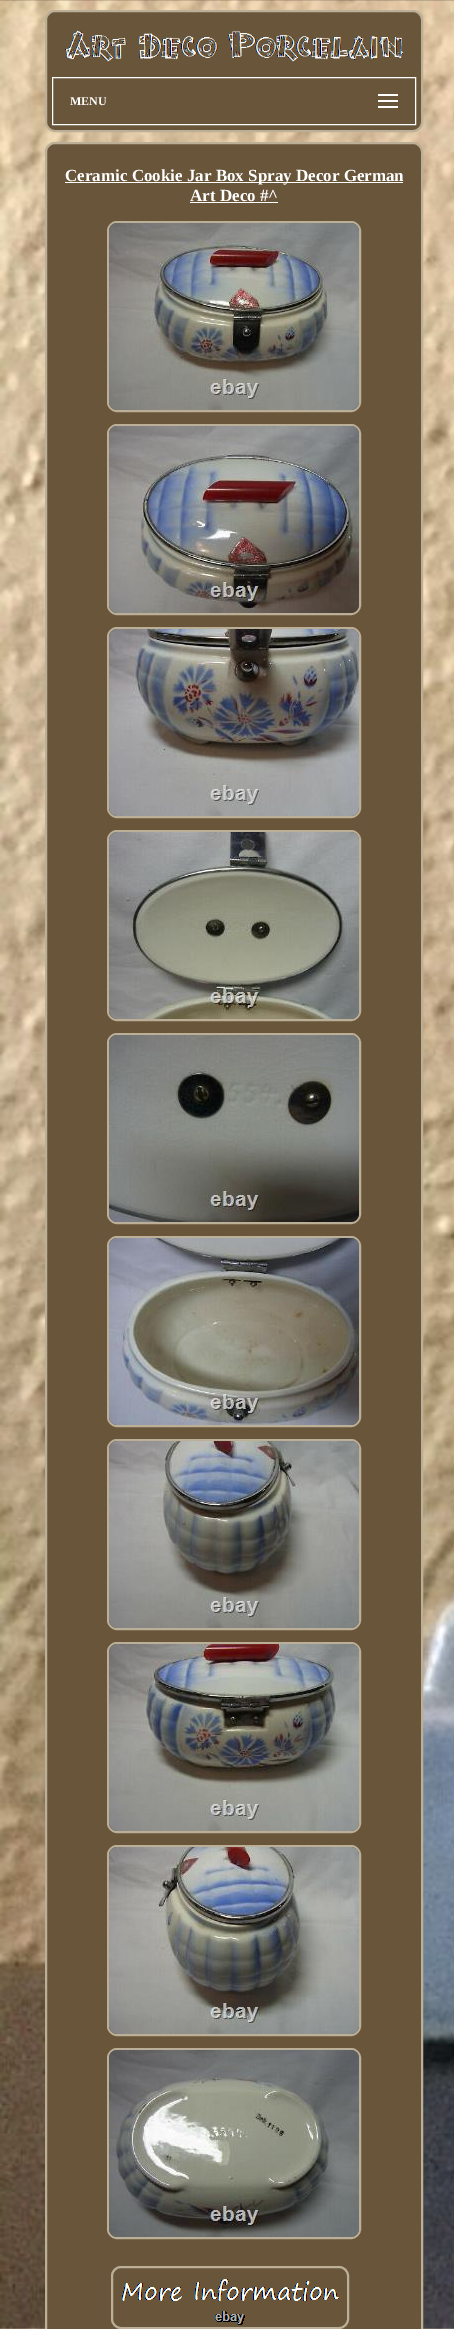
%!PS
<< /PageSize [454 2329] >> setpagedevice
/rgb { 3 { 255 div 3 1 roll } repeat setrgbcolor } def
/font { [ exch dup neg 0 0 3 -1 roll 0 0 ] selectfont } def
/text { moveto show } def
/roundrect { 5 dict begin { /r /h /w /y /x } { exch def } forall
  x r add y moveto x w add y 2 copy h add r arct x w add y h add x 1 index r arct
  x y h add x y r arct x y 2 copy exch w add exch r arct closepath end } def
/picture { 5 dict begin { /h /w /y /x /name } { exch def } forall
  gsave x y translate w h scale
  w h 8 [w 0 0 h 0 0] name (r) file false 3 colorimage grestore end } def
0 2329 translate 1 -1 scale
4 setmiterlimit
255 255 255 rgb
0 0 454 2329 rectfill
(img_01.rgb) 0 0 454 2329 picture
105 85 58 rgb
46 11 376 120 9 roundrect gsave fill grestore
187 175 151 rgb
2 setlinewidth
stroke
(img_02.rgb) 65 30 339 32 picture
255 255 255 rgb
1 setlinewidth
52.5 77.5 363 47 rectstroke
378 94 20 2 rectfill
378 100 20 2 rectfill
378 106 20 2 rectfill
105 85 58 rgb
46 143 376 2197 9 roundrect gsave fill grestore
187 175 151 rgb
2 setlinewidth
stroke
255 255 255 rgb
65 182 338 1 rectfill
190 202 88 1 rectfill
187 175 151 rgb
108 222 252 189 9 roundrect stroke
(img_03.rgb) 109 223 250 187 picture
108 425 252 189 9 roundrect stroke
(img_04.rgb) 109 426 250 187 picture
108 628 252 189 9 roundrect stroke
(img_05.rgb) 109 629 250 187 picture
108 831 252 189 9 roundrect stroke
(img_06.rgb) 109 832 250 187 picture
108 1034 252 189 9 roundrect stroke
(img_07.rgb) 109 1035 250 187 picture
108 1237 252 189 9 roundrect stroke
(img_08.rgb) 109 1238 250 187 picture
108 1440 252 189 9 roundrect stroke
(img_09.rgb) 109 1441 250 187 picture
108 1643 252 189 9 roundrect stroke
(img_10.rgb) 109 1644 250 187 picture
108 1846 252 189 9 roundrect stroke
(img_11.rgb) 109 1847 250 187 picture
108 2049 252 189 9 roundrect stroke
(img_12.rgb) 109 2050 250 187 picture
112 2267 236 61 9 roundrect stroke
(img_13.rgb) 122 2279 217 46 picture
/LiberationSerif-Bold 12 font
255 255 255 rgb
(MENU) 70 105 text
/LiberationSerif-Bold 17 font
(Ceramic Cookie Jar Box Spray Decor German) 65 181 text
(Art Deco #^) 190 201 text
showpage
